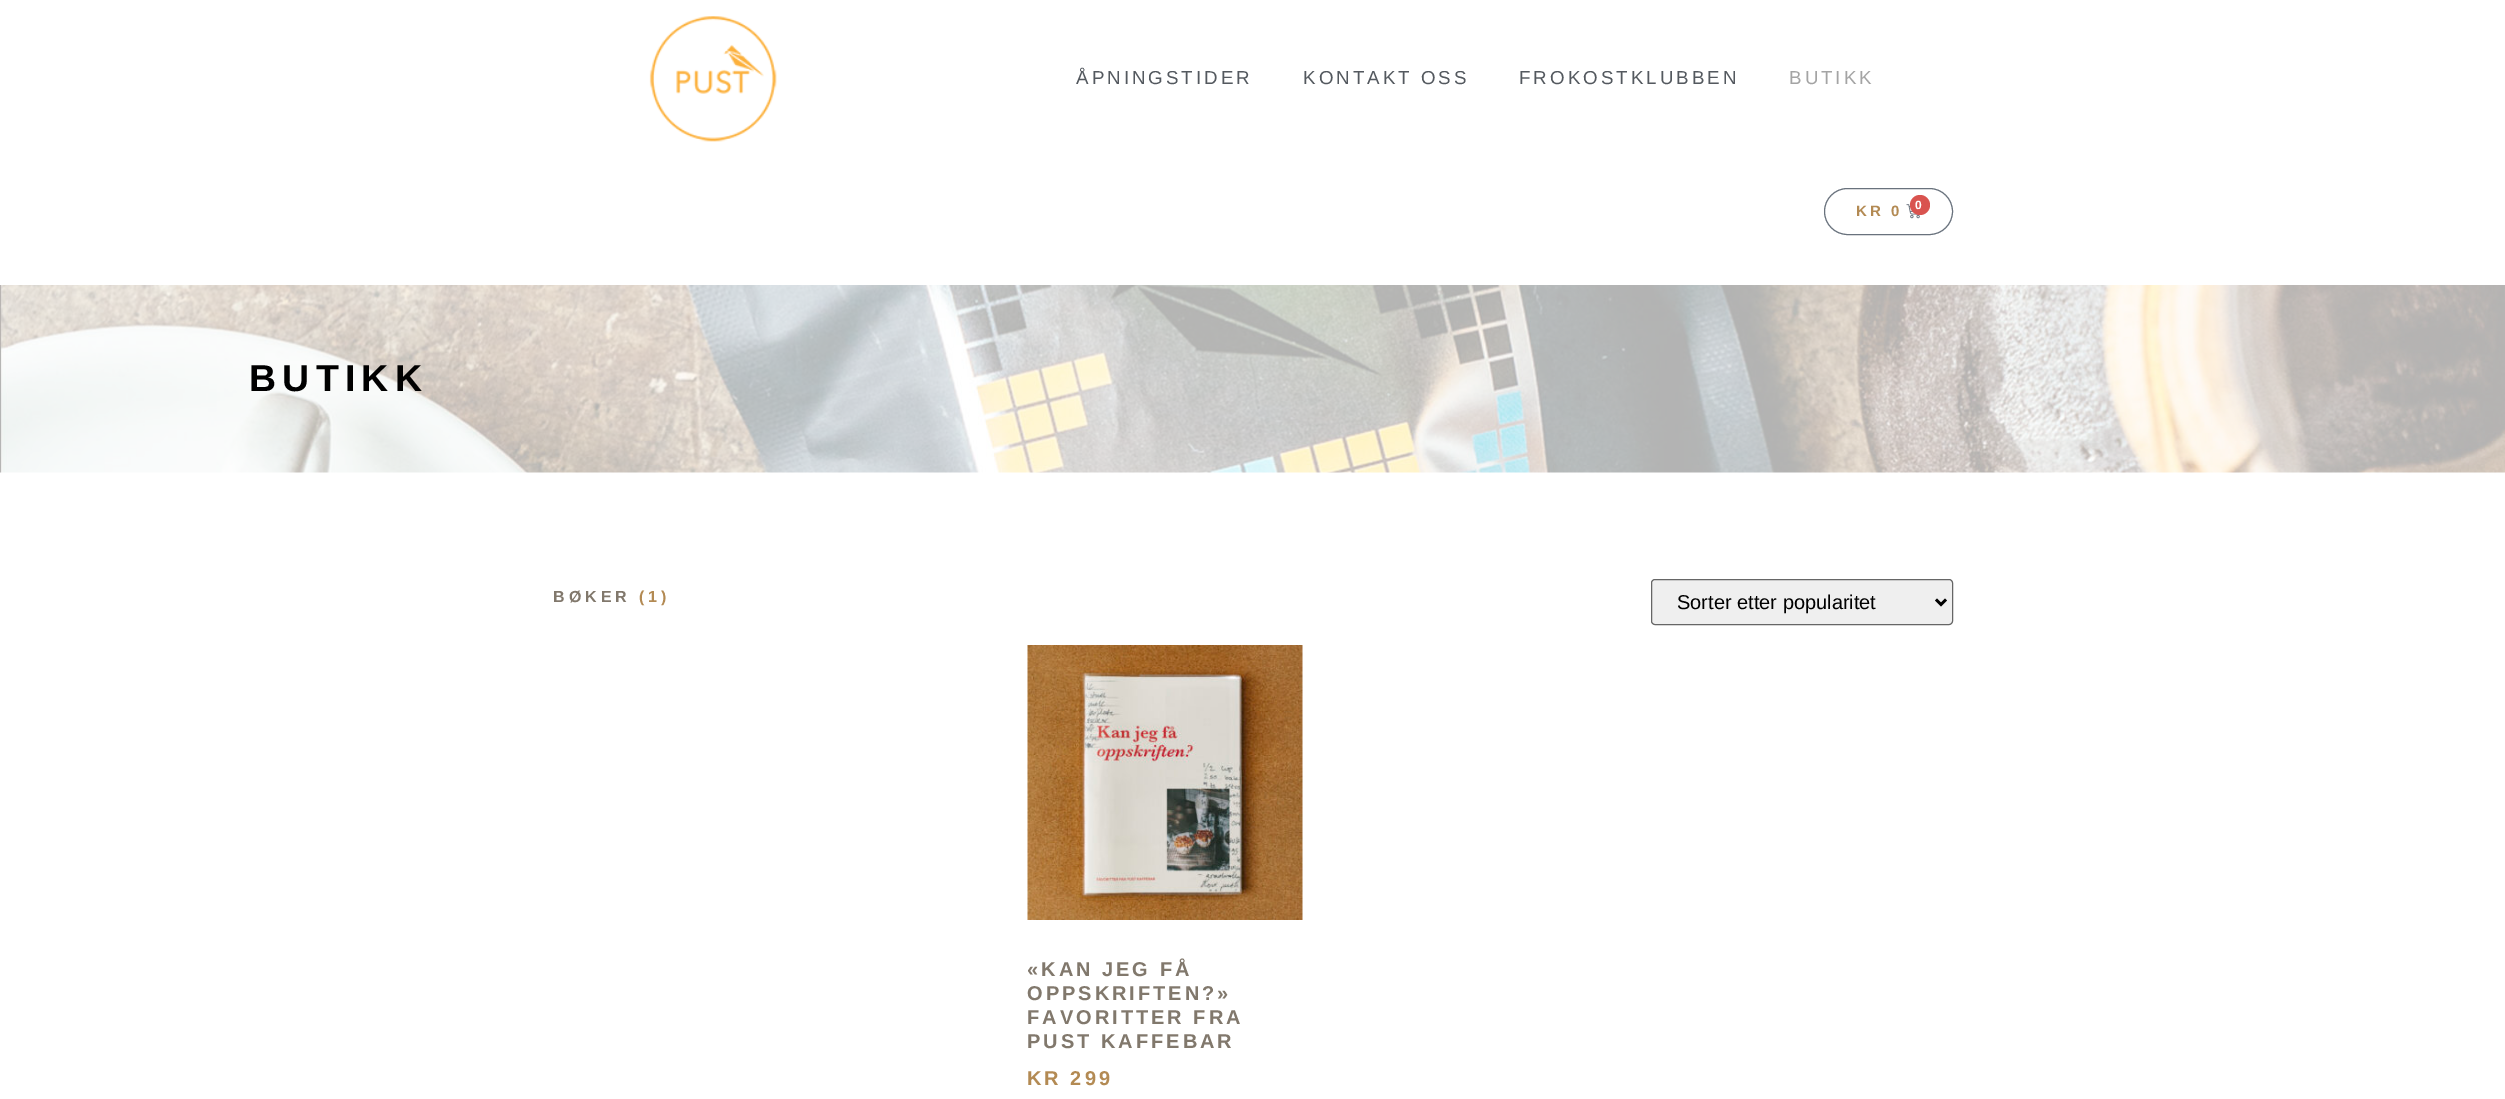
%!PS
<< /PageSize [2505 1099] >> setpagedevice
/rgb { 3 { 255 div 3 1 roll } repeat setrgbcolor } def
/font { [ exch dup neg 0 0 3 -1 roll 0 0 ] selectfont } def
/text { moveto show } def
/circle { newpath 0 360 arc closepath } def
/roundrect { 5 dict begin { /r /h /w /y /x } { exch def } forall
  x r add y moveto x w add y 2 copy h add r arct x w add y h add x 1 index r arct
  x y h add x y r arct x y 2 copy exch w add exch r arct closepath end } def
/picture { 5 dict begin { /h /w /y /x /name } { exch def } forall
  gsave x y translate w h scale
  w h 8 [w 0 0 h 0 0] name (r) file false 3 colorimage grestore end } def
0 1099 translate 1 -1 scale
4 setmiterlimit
255 255 255 rgb
0 0 2505 1099 rectfill
(img_01.rgb) 649 16 128 126 picture
105 114 125 rgb
1824.5 188.5 128 46 23 roundrect stroke
(img_02.rgb) 1906 204 14 15 picture
217 83 79 rgb
1920 205 10 circle fill
(img_03.rgb) 0 285 2505 188 picture
239 239 239 rgb
1651.5 579.5 301 45 3.5 roundrect gsave fill grestore
102 102 102 rgb
stroke
0 0 0 rgb
2.5 setlinewidth
1936 599.5 moveto 5 5 rlineto 5 -5 rlineto stroke
(img_04.rgb) 1027 645 276 275 picture
/LiberationSans-Regular 18.75 font
84 89 95 rgb
1076 84 moveto 3 0 (ÅPNINGSTIDER) ashow
1303 84 moveto 3 0 (KONTAKT OSS) ashow
1519 84 moveto 3 0 (FROKOSTKLUBBEN) ashow
164 164 164 rgb
1789 84 moveto 3 0 (BUTIKK) ashow
/LiberationSans-Bold 15 font
179 138 83 rgb
1856 216 moveto 3 0 (KR 0) ashow
/LiberationSans-Bold 12 font
255 255 255 rgb
1915 209 moveto 3 0 (0) ashow
/LiberationSans-Bold 37.5 font
0 0 0 rgb
249 391 moveto 6.25 0 (BUTIKK) ashow
/LiberationSans-Bold 16 font
129 120 108 rgb
553 602 moveto 4 0 (BØKER) ashow
179 138 83 rgb
639 602 moveto 4 0 (\(1\)) ashow
/LiberationSans-Regular 20 font
0 0 0 rgb
(Sorter etter popularitet) 1677 609 text
/LiberationSans-Bold 20 font
129 120 108 rgb
1027 976 moveto 3 0 («KAN JEG FÅ) ashow
1027 1000 moveto 3 0 (OPPSKRIFTEN?») ashow
1027 1024 moveto 3 0 (FAVORITTER FRA) ashow
1027 1048 moveto 3 0 (PUST KAFFEBAR) ashow
179 138 83 rgb
1027 1085 moveto 3 0 (KR 299) ashow
showpage
